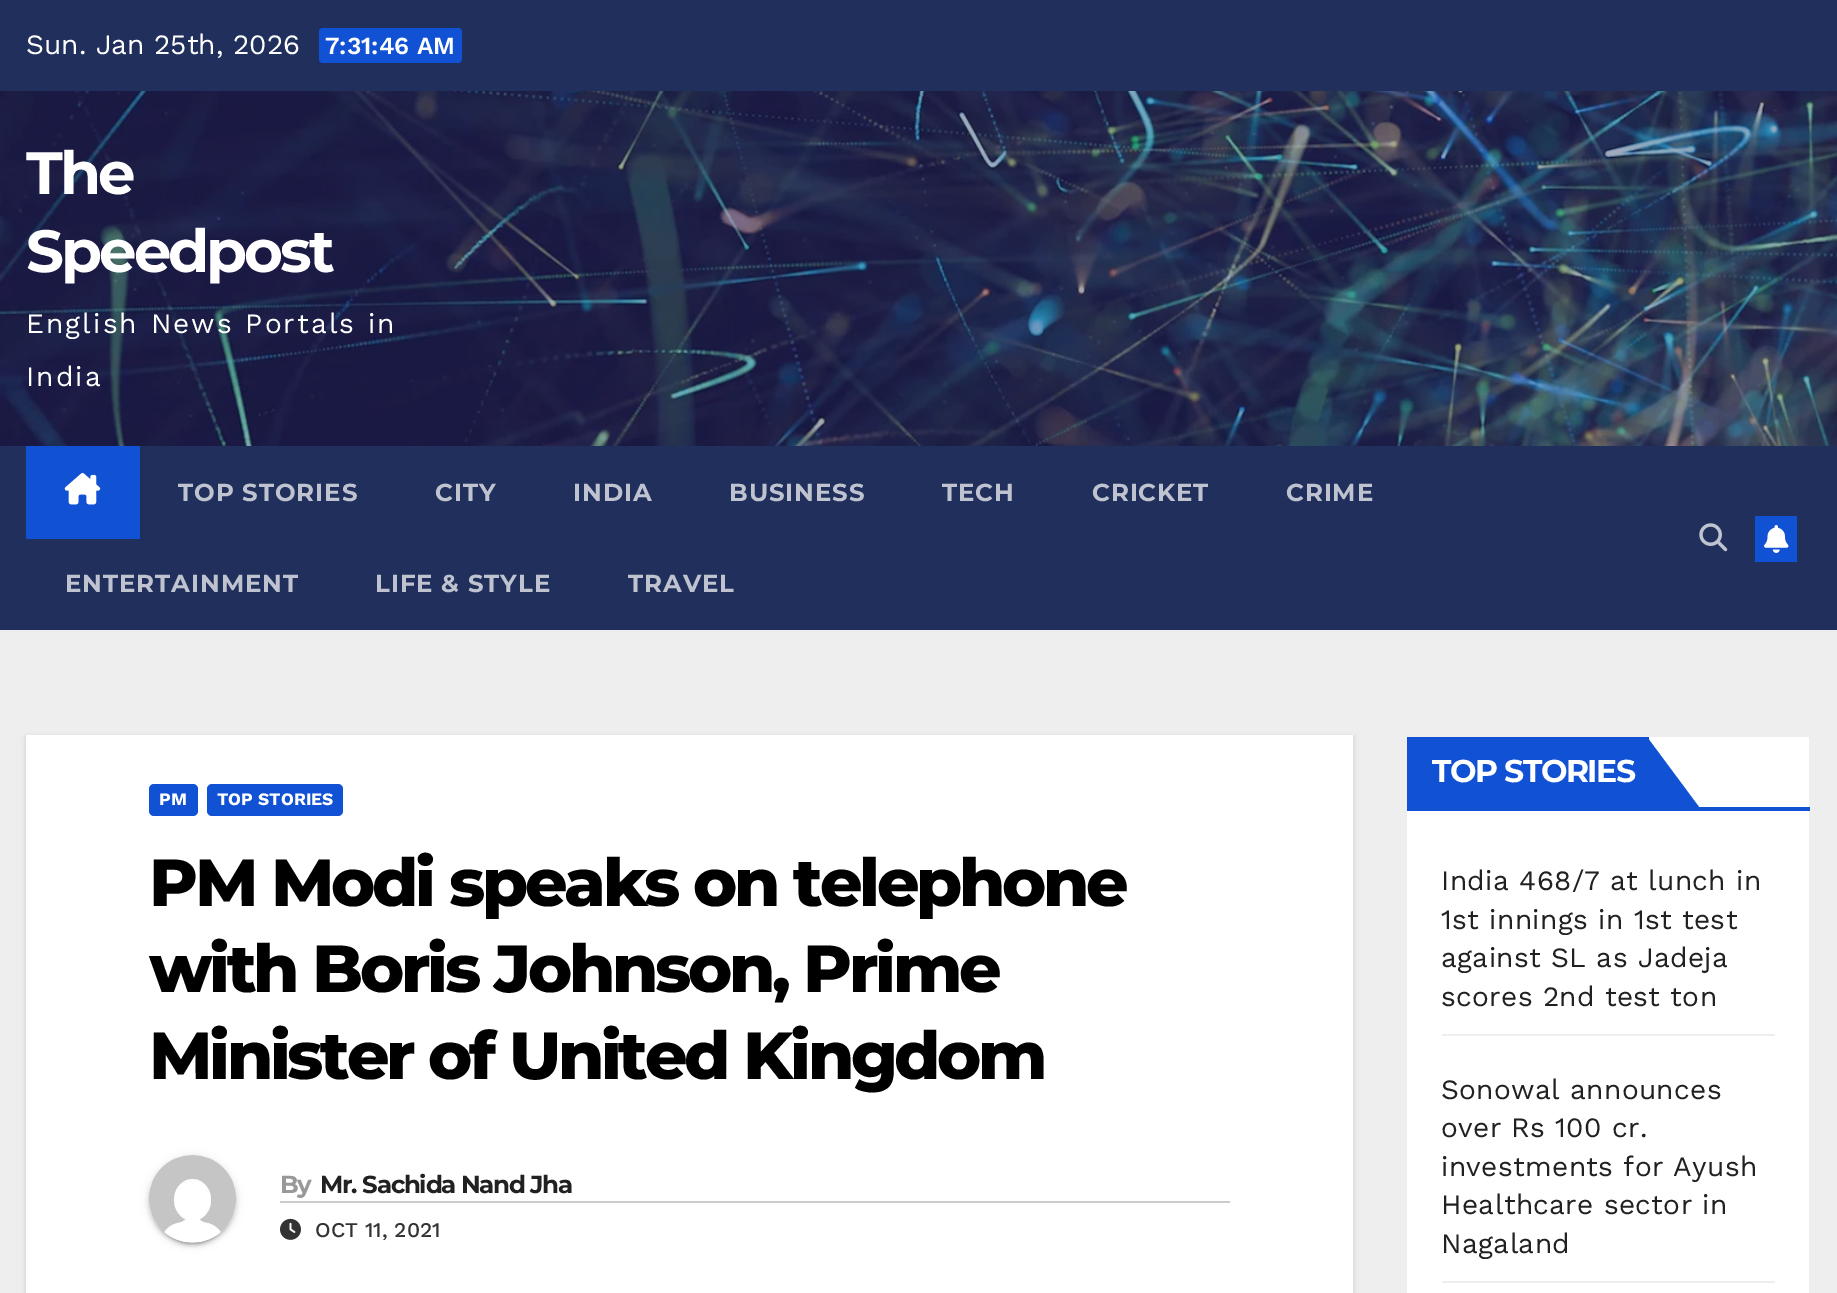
%!PS
<< /PageSize [1837 1293] /PageUsesTransparency true >> setpagedevice
/rgb { 3 { 255 div 3 1 roll } repeat setrgbcolor } def
/font { [ exch dup neg 0 0 3 -1 roll 0 0 ] selectfont } def
/text { moveto show } def
/alpha { dup .setfillconstantalpha .setstrokeconstantalpha } def
/roundrect { 5 dict begin { /r /h /w /y /x } { exch def } forall
  x r add y moveto x w add y 2 copy h add r arct x w add y h add x 1 index r arct
  x y h add x y r arct x y 2 copy exch w add exch r arct closepath end } def
/shadow { 12 dict begin { /a /b /q /h /w /y /x } { exch def } forall gsave /was 0 def
  9 -2 -9 { dup b mul 4 div /e exch def 1 sub .425 mul 2.718 exch exp 1 add a .99 .min exch div /now exch def
    1 1 now sub 1 was sub div sub alpha /was now def
    w h .min e 2 mul add 0 gt { x e sub y e sub w e 2 mul add h e 2 mul add
      q e add b .6 mul add w h .min 2 div e add .min 0 .max roundrect fill } if } for grestore end } def
/picture { 5 dict begin { /h /w /y /x /name } { exch def } forall
  gsave x y translate w h scale
  w h 8 [w 0 0 h 0 0] name (r) file false 3 colorimage grestore end } def
0 .pushpdf14devicefilter
0 1293 translate 1 -1 scale
4 setmiterlimit
238 238 238 rgb
0 0 1837 1293 rectfill
32 47 91 rgb
0 0 1837 91 rectfill
17 81 211 rgb
319 28 143 35 4 roundrect fill
(img_01.rgb) 0 91 1837 355 picture
32 47 91 rgb
0 446 1837 184 rectfill
17 81 211 rgb
26 446 114 93 rectfill
(img_02.rgb) 64 472 37 33 picture
(img_03.rgb) 1699 523 29 29 picture
1755 516 42 46 rectfill
(img_04.rgb) 1764 525 25 28 picture
0 0 0 rgb
26 737 1327 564 0 2.5 0.15 shadow
255 255 255 rgb
26 735 1327 558 rectfill
17 81 211 rgb
149 784 49 32 5 roundrect fill
207 784 136 32 5 roundrect fill
0 0 0 rgb
149 1157 87 87 43.5 4.5 0.12 shadow
152 1164 81 80 40 1 0.2 shadow
149 1159 87 87 43.5 2 0.14 shadow
(img_05.rgb) 149 1155 87 88 picture
204 204 204 rgb
280 1201 950 2 rectfill
(img_06.rgb) 280 1218 21 22 picture
255 255 255 rgb
1407 737 402 556 rectfill
17 81 211 rgb
1407 807 403 4 rectfill
1407 737 242 70 rectfill
1647 807 moveto 0 -70 rlineto 52 70 rlineto closepath fill
238 238 238 rgb
1442 1034 333 2 rectfill
1442 1281 333 2 rectfill
/WorkSans-Regular 28 font
255 255 255 rgb
(Sun. Jan 25th, 2026) 26 54 text
/WorkSans-SemiBold 24.5 font
(7:31:46 AM) 325 54 text
/Montserrat-Bold 59.5 font
26 194 moveto -3 0 (The) ashow
26 272 moveto -3 0 (Speedpost) ashow
/WorkSans-Regular 28 font
26 333 moveto 2.1 0 (English News Portals in) ashow
26 386 moveto 2.1 0 (India) ashow
/Montserrat-Bold 24.5 font
190 195 207 rgb
178 501 moveto 0.9 0 (TOP STORIES) ashow
435 501 moveto 0.9 0 (CITY) ashow
573 501 moveto 0.9 0 (INDIA) ashow
729 501 moveto 0.9 0 (BUSINESS) ashow
942 501 moveto 0.9 0 (TECH) ashow
1092 501 moveto 0.9 0 (CRICKET) ashow
1286 501 moveto 0.9 0 (CRIME) ashow
65 592 moveto 0.9 0 (ENTERTAINMENT) ashow
375 592 moveto 0.9 0 (LIFE & STYLE) ashow
628 592 moveto 0.9 0 (TRAVEL) ashow
/WorkSans-Bold 17.5 font
255 255 255 rgb
(PM) 159 805 text
(TOP STORIES) 217 805 text
/Montserrat-ExtraBold 66.5 font
0 0 0 rgb
149 906 moveto -3.3 0 (PM Modi speaks on telephone) ashow
149 992 moveto -3.3 0 (with Boris Johnson, Prime) ashow
149 1079 moveto -3.3 0 (Minister of United Kingdom) ashow
/Montserrat-Bold 24.5 font
153 153 153 rgb
280 1193 moveto -1.25 0 (By) ashow
33 33 33 rgb
320 1193 moveto -1.25 0 (Mr. Sachida Nand Jha) ashow
/WorkSans-Medium 21 font
51 51 51 rgb
(OCT 11, 2021) 315 1237 text
/Montserrat-Bold 31.5 font
255 255 255 rgb
1432 782 moveto -1.5 0 (TOP STORIES) ashow
/WorkSans-Regular 28 font
33 33 33 rgb
1441 890 moveto 0.35 0 (India 468/7 at lunch in) ashow
1441 929 moveto 0.35 0 (1st innings in 1st test) ashow
1441 967 moveto 0.35 0 (against SL as Jadeja) ashow
1441 1006 moveto 0.35 0 (scores 2nd test ton) ashow
1441 1099 moveto 0.35 0 (Sonowal announces) ashow
1441 1137 moveto 0.35 0 (over Rs 100 cr.) ashow
1441 1176 moveto 0.35 0 (investments for Ayush) ashow
1441 1214 moveto 0.35 0 (Healthcare sector in) ashow
1441 1253 moveto 0.35 0 (Nagaland) ashow
.poppdf14devicefilter showpage
